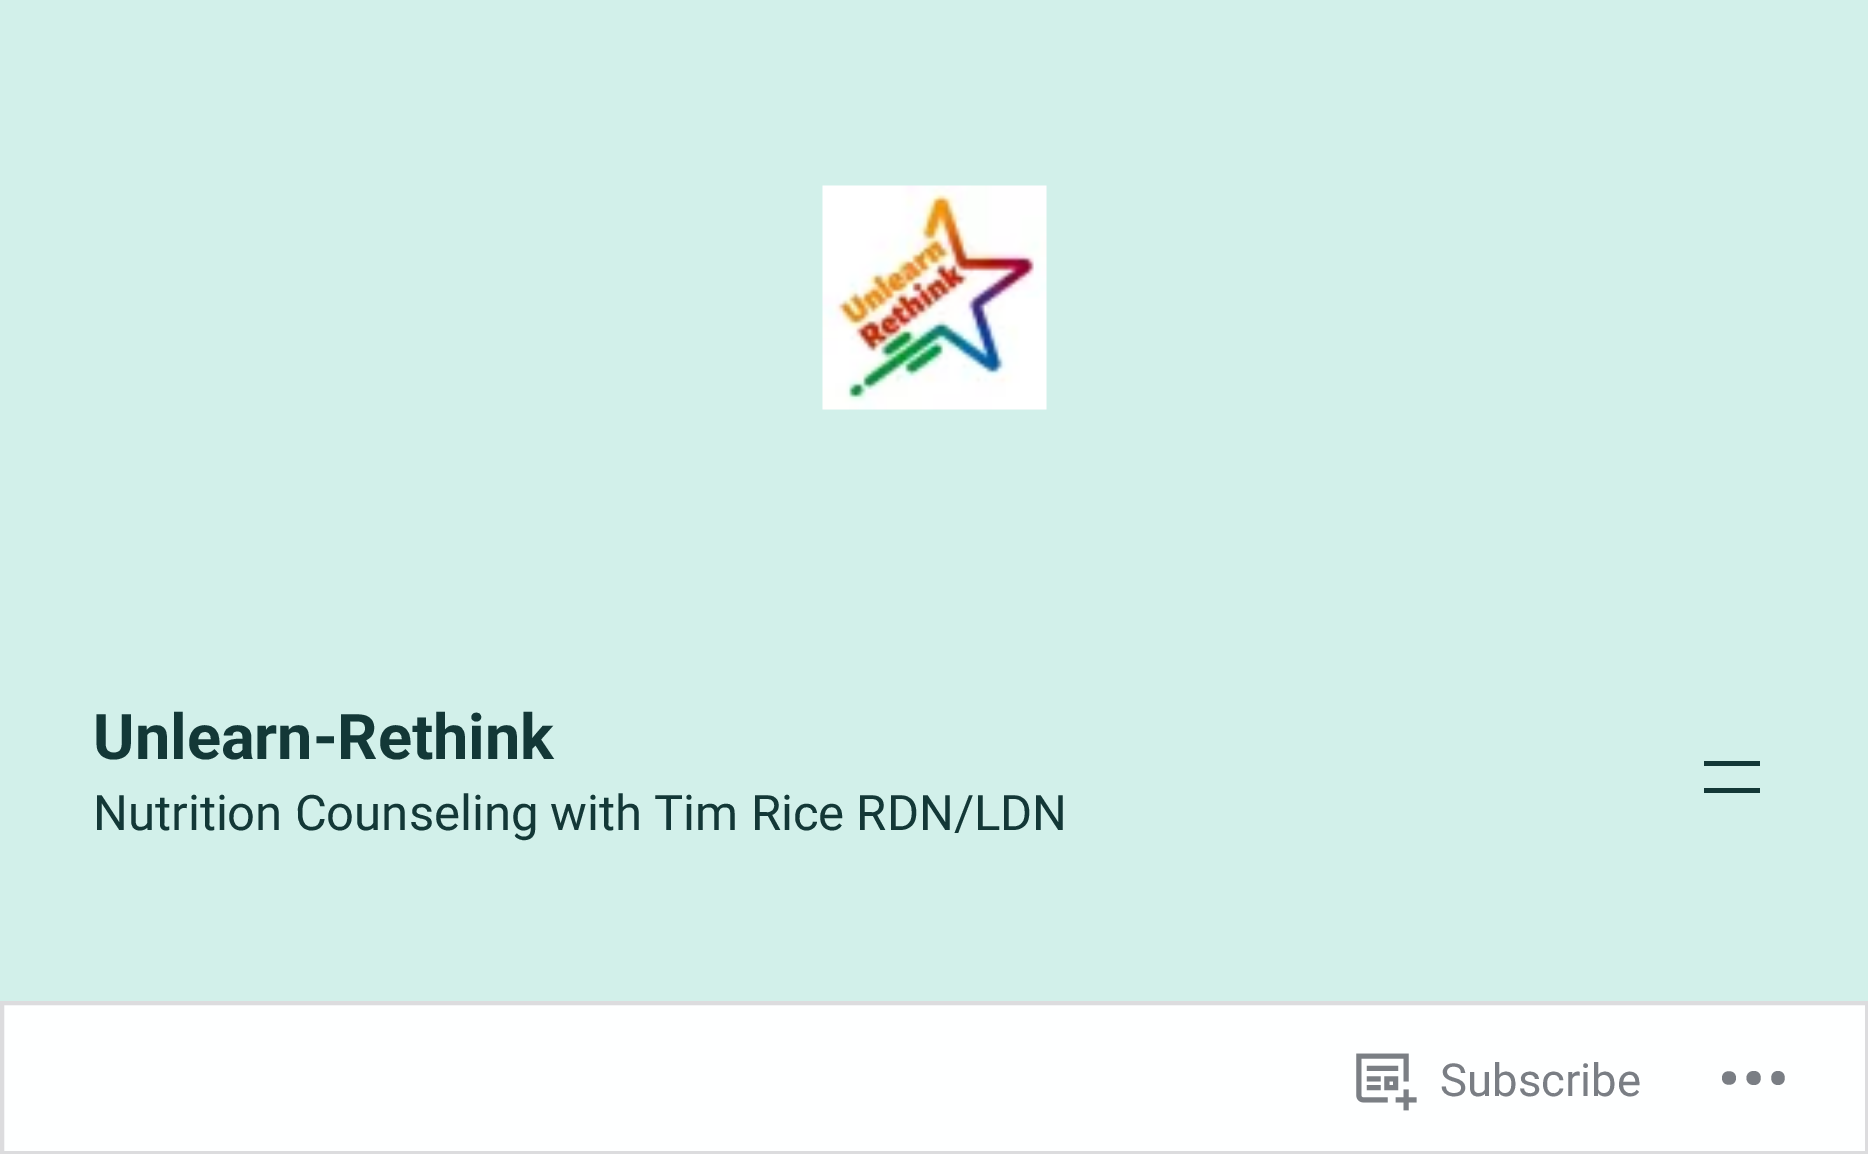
%!PS
<< /PageSize [1868 1154] >> setpagedevice
/rgb { 3 { 255 div 3 1 roll } repeat setrgbcolor } def
/font { [ exch dup neg 0 0 3 -1 roll 0 0 ] selectfont } def
/text { moveto show } def
/picture { 5 dict begin { /h /w /y /x /name } { exch def } forall
  gsave x y translate w h scale
  w h 8 [w 0 0 h 0 0] name (r) file false 3 colorimage grestore end } def
0 1154 translate 1 -1 scale
4 setmiterlimit
210 240 234 rgb
0 0 1868 1154 rectfill
(img_01.rgb) 822 185 225 225 picture
19 56 55 rgb
1704 761 56 5 rectfill
1704 788 56 5 rectfill
254 255 255 rgb
2 1003 moveto 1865 0 rlineto 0 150 rlineto -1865 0 rlineto closepath gsave fill grestore
220 220 222 rgb
4 setlinewidth
stroke
(img_02.rgb) 1356 1053 61 58 picture
122 126 132 rgb
1736 1078 moveto 0 9 -14 9 -14 0 rcurveto 0 -9 14 -9 14 0 rcurveto closepath 1778 1071 moveto -9 0 -9 14 0 14 rcurveto 9 0 9 -14 0 -14 rcurveto closepath 1754 1071 moveto -10 0 -10 14 0 14 rcurveto 9 0 9 -14 0 -14 rcurveto closepath fill
/Roboto-Bold 63 font
19 56 55 rgb
(Unlearn-Rethink) 93 759 text
/Roboto-Regular 49 font
(Nutrition Counseling with Tim Rice RDN/LDN) 93 830 text
/Roboto-Regular 45.5 font
122 126 132 rgb
(Subscribe) 1440 1096 text
showpage
